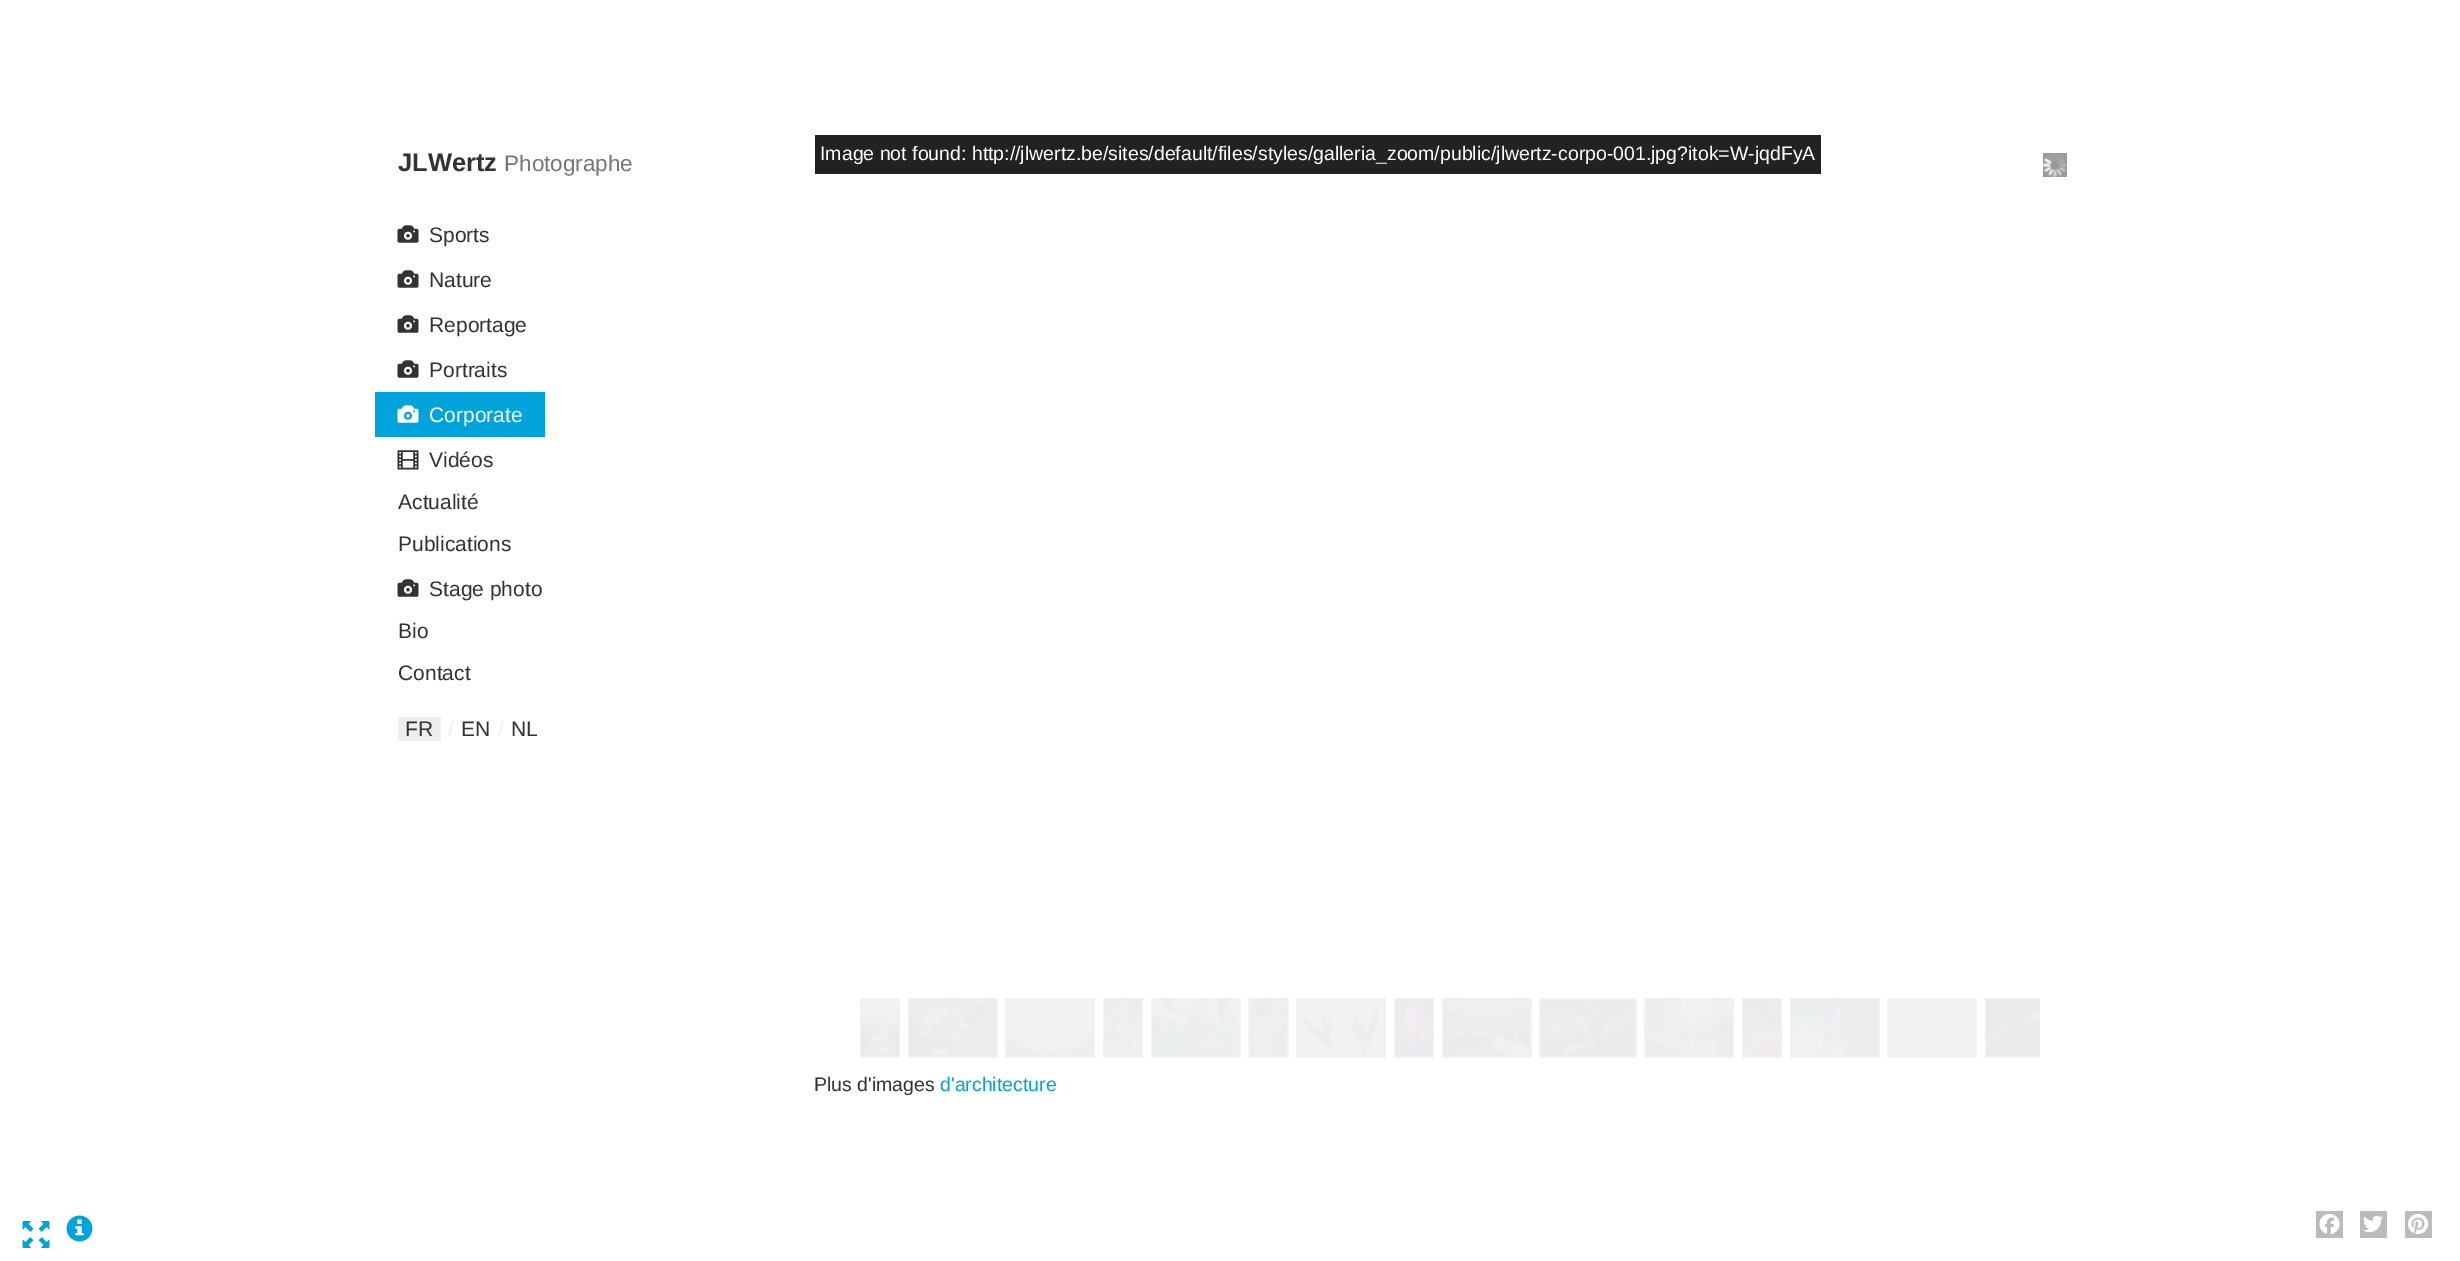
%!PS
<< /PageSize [2460 1261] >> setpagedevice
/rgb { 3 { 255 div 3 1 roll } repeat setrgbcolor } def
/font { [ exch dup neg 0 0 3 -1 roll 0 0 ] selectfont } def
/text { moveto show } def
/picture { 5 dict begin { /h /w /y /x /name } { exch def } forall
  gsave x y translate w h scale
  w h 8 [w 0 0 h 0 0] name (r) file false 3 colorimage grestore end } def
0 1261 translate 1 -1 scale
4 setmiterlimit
255 255 255 rgb
0 0 2460 1261 rectfill
(img_01.rgb) 397 225 22 18 picture
(img_01.rgb) 397 270 22 18 picture
(img_01.rgb) 397 315 22 18 picture
(img_01.rgb) 397 360 22 18 picture
0 164 219 rgb
375 392 170 45 rectfill
(img_02.rgb) 397 405 22 18 picture
(img_03.rgb) 397 450 22 20 picture
(img_01.rgb) 397 579 22 18 picture
238 238 238 rgb
398 717 43 24 rectfill
34 34 34 rgb
815 135 1006 39 rectfill
(img_04.rgb) 2043 153 24 24 picture
242 242 242 rgb
860 998 40 60 rectfill
(img_05.rgb) 861 1006 38 50 picture
908 998 90 60 rectfill
(img_06.rgb) 909 999 87 57 picture
1005 998 90 60 rectfill
(img_07.rgb) 1007 1037 87 19 picture
1103 998 40 60 rectfill
(img_08.rgb) 1104 999 38 57 picture
1151 998 90 60 rectfill
(img_09.rgb) 1152 999 87 57 picture
1248 998 41 60 rectfill
(img_10.rgb) 1250 999 37 57 picture
1296 998 90 60 rectfill
(img_11.rgb) 1303 1007 75 49 picture
1394 998 40 60 rectfill
(img_12.rgb) 1395 999 38 57 picture
1442 998 90 60 rectfill
(img_13.rgb) 1443 999 87 57 picture
1539 998 98 60 rectfill
(img_14.rgb) 1541 1000 94 56 picture
1644 998 90 60 rectfill
(img_15.rgb) 1646 999 87 57 picture
1742 998 40 60 rectfill
(img_16.rgb) 1743 999 38 57 picture
1790 998 90 60 rectfill
(img_17.rgb) 1791 999 87 57 picture
1887 998 90 60 rectfill
236 236 236 rgb
1932 1028 3 4 rectfill
242 242 242 rgb
1985 998 55 60 rectfill
(img_18.rgb) 1986 999 54 57 picture
(img_19.rgb) 22 1221 28 27 picture
(img_20.rgb) 66 1215 27 27 picture
187 187 187 rgb
2316 1211 27 27 rectfill
(img_21.rgb) 2319 1213 21 21 picture
2360 1211 27 27 rectfill
(img_22.rgb) 2363 1215 20 18 picture
2405 1211 27 27 rectfill
(img_23.rgb) 2407 1213 22 22 picture
/LiberationSans-Bold 25.5 font
51 51 51 rgb
(JLWertz) 398 171 text
/LiberationSans-Regular 22.5 font
119 119 119 rgb
(Photographe) 504 171 text
/LiberationSans-Regular 21 font
51 51 51 rgb
(Sports) 429 242 text
(Nature) 429 287 text
(Reportage) 429 332 text
(Portraits) 429 377 text
255 255 255 rgb
(Corporate) 429 422 text
51 51 51 rgb
(Vidéos) 429 467 text
(Actualité) 398 509 text
(Publications) 398 551 text
(Stage photo) 429 596 text
(Bio) 398 638 text
(Contact) 398 680 text
(FR) 405 736 text
238 238 238 rgb
(/) 448 736 text
51 51 51 rgb
(EN) 461 736 text
238 238 238 rgb
(/) 498 736 text
51 51 51 rgb
(NL) 511 736 text
/LiberationSans-Regular 19.5 font
255 255 255 rgb
(Image not found: http://jlwertz.be/sites/default/files/styles/galleria_zoom/public/jlwertz-corpo-001.jpg?itok=W-jqdFyA) 820 160 text
51 51 51 rgb
(Plus d'images) 814 1091 text
0 164 219 rgb
(d'architecture) 940 1091 text
showpage
